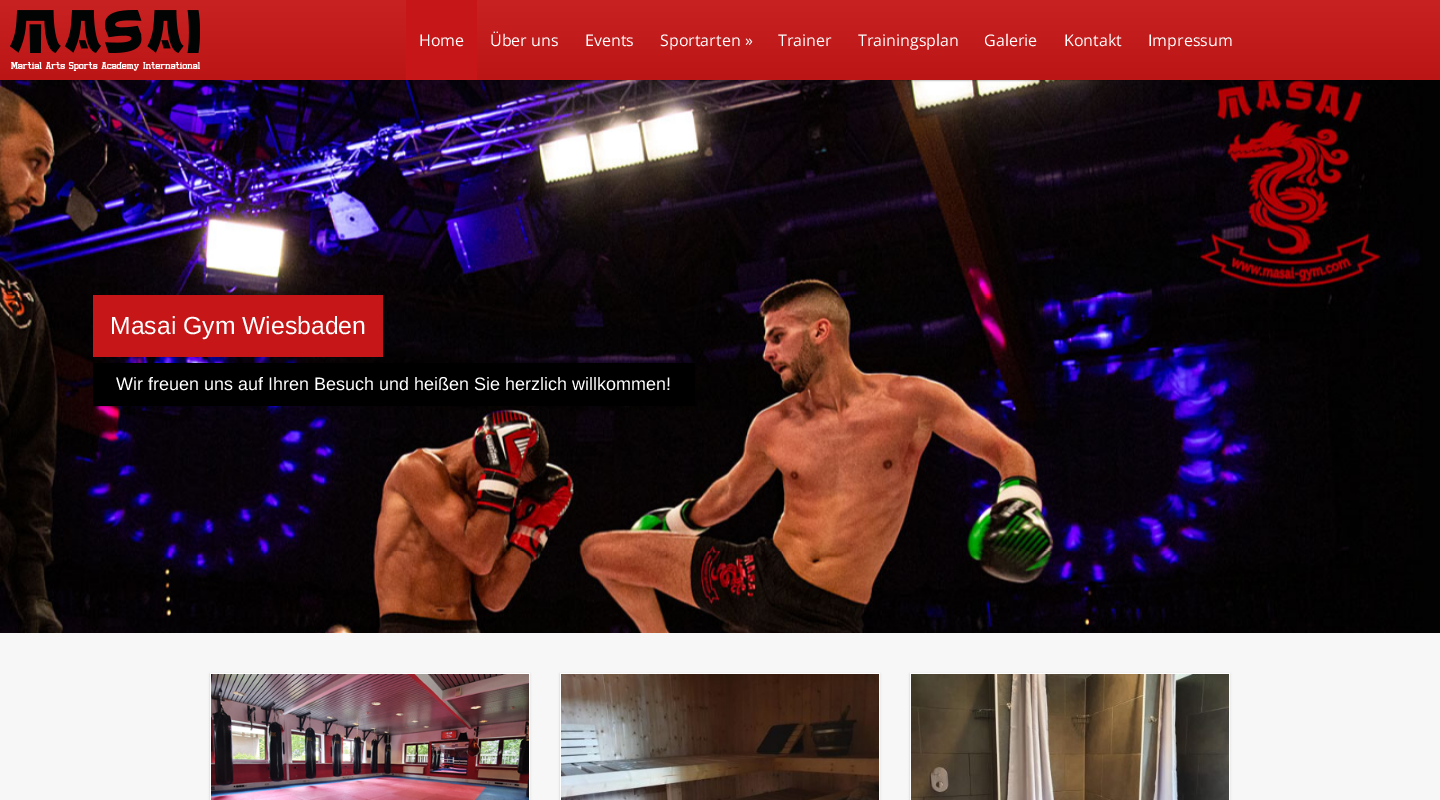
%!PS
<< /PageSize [1440 800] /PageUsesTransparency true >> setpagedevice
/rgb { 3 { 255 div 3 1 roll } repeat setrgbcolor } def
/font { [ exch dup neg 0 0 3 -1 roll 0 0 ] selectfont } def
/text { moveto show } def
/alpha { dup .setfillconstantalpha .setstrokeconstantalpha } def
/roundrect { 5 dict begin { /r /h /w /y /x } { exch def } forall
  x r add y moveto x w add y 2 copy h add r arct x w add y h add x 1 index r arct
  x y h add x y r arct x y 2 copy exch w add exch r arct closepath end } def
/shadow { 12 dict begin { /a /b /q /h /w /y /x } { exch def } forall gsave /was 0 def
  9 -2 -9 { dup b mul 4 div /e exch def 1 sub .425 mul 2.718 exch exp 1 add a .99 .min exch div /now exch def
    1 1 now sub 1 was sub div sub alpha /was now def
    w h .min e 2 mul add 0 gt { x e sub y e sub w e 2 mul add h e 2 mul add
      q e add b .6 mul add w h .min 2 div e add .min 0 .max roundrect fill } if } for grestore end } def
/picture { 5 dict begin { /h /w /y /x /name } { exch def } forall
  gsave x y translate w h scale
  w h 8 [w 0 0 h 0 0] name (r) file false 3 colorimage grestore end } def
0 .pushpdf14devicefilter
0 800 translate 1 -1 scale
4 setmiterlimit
255 255 255 rgb
0 0 1440 800 rectfill
(img_02.rgb) 0 80 1440 553 picture
0 0 0 rgb
0 0 1440 80 0 1 0.6 shadow
gsave 0 0 moveto 1440 0 rlineto 0 80 rlineto -1440 0 rlineto closepath clip newpath
<< /ShadingType 2 /ColorSpace /DeviceRGB /Coords [720 0 720 80] /Extend [true true] /Function << /FunctionType 2 /Domain [0 1] /C0 [0.788 0.133 0.137] /C1 [0.737 0.082 0.086] /N 1 >> >> shfill grestore
(img_01.rgb) 10 10 190 61 picture
198 22 23 rgb
406 0 71 80 rectfill
93 295 290 62 rectfill
0 0 0 rgb
93 363 602 43 rectfill
247 247 247 rgb
0 633 1440 167 rectfill
0 0 0 rgb
210 674 320 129 0 1 0.2 shadow
255 255 255 rgb
210.5 673.5 319 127 rectstroke
(img_03.rgb) 211 674 318 126 picture
0 0 0 rgb
560 674 320 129 0 1 0.2 shadow
255 255 255 rgb
560.5 673.5 319 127 rectstroke
(img_04.rgb) 561 674 318 126 picture
0 0 0 rgb
910 674 320 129 0 1 0.2 shadow
255 255 255 rgb
910.5 673.5 319 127 rectstroke
(img_05.rgb) 911 674 318 126 picture
/OpenSans-Regular 16 font
(Home) 419 46 text
(Über uns) 490 46 text
(Events) 585 46 text
(Sportarten ») 660 46 text
(Trainer) 778 46 text
(Trainingsplan) 858 46 text
(Galerie) 984 46 text
(Kontakt) 1064 46 text
(Impressum) 1148 46 text
/LiberationSans-Regular 24.75 font
(Masai Gym Wiesbaden) 110 334 text
/LiberationSans-Regular 18 font
(Wir freuen uns auf Ihren Besuch und heißen Sie herzlich willkommen!) 116 390 text
.poppdf14devicefilter showpage
